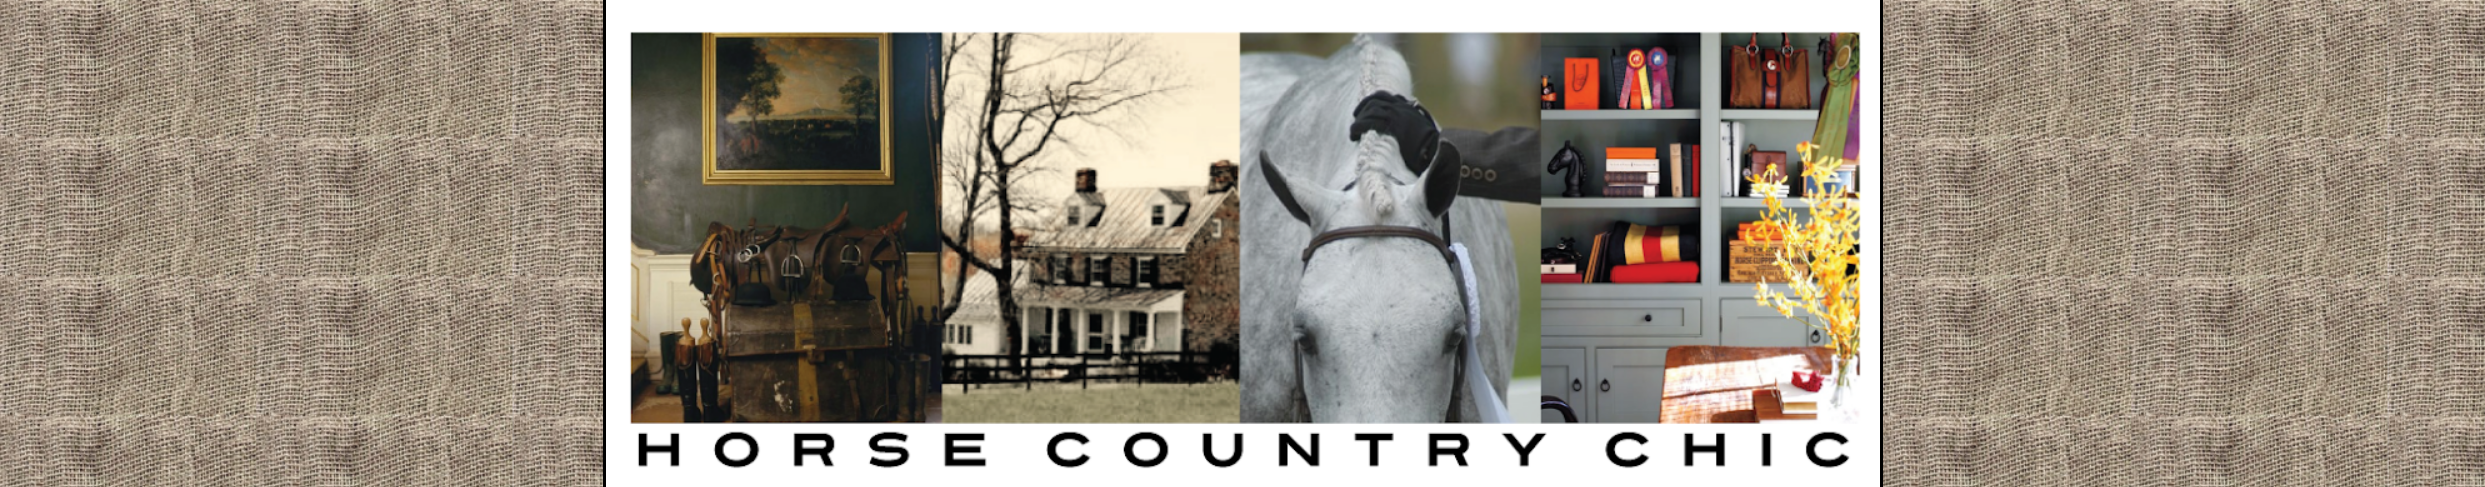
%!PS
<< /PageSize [2485 487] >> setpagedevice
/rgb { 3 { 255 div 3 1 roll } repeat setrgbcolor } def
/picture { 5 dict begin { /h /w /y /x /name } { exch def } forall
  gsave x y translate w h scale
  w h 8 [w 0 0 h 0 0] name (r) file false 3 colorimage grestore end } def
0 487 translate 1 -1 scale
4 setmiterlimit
255 255 255 rgb
0 0 2485 487 rectfill
(img_01.rgb) 0 0 2485 487 picture
606 0 1274 487 rectfill
0 0 0 rgb
1880 0 3 487 rectfill
603 0 3 487 rectfill
(img_02.rgb) 629 31 1232 438 picture
showpage
